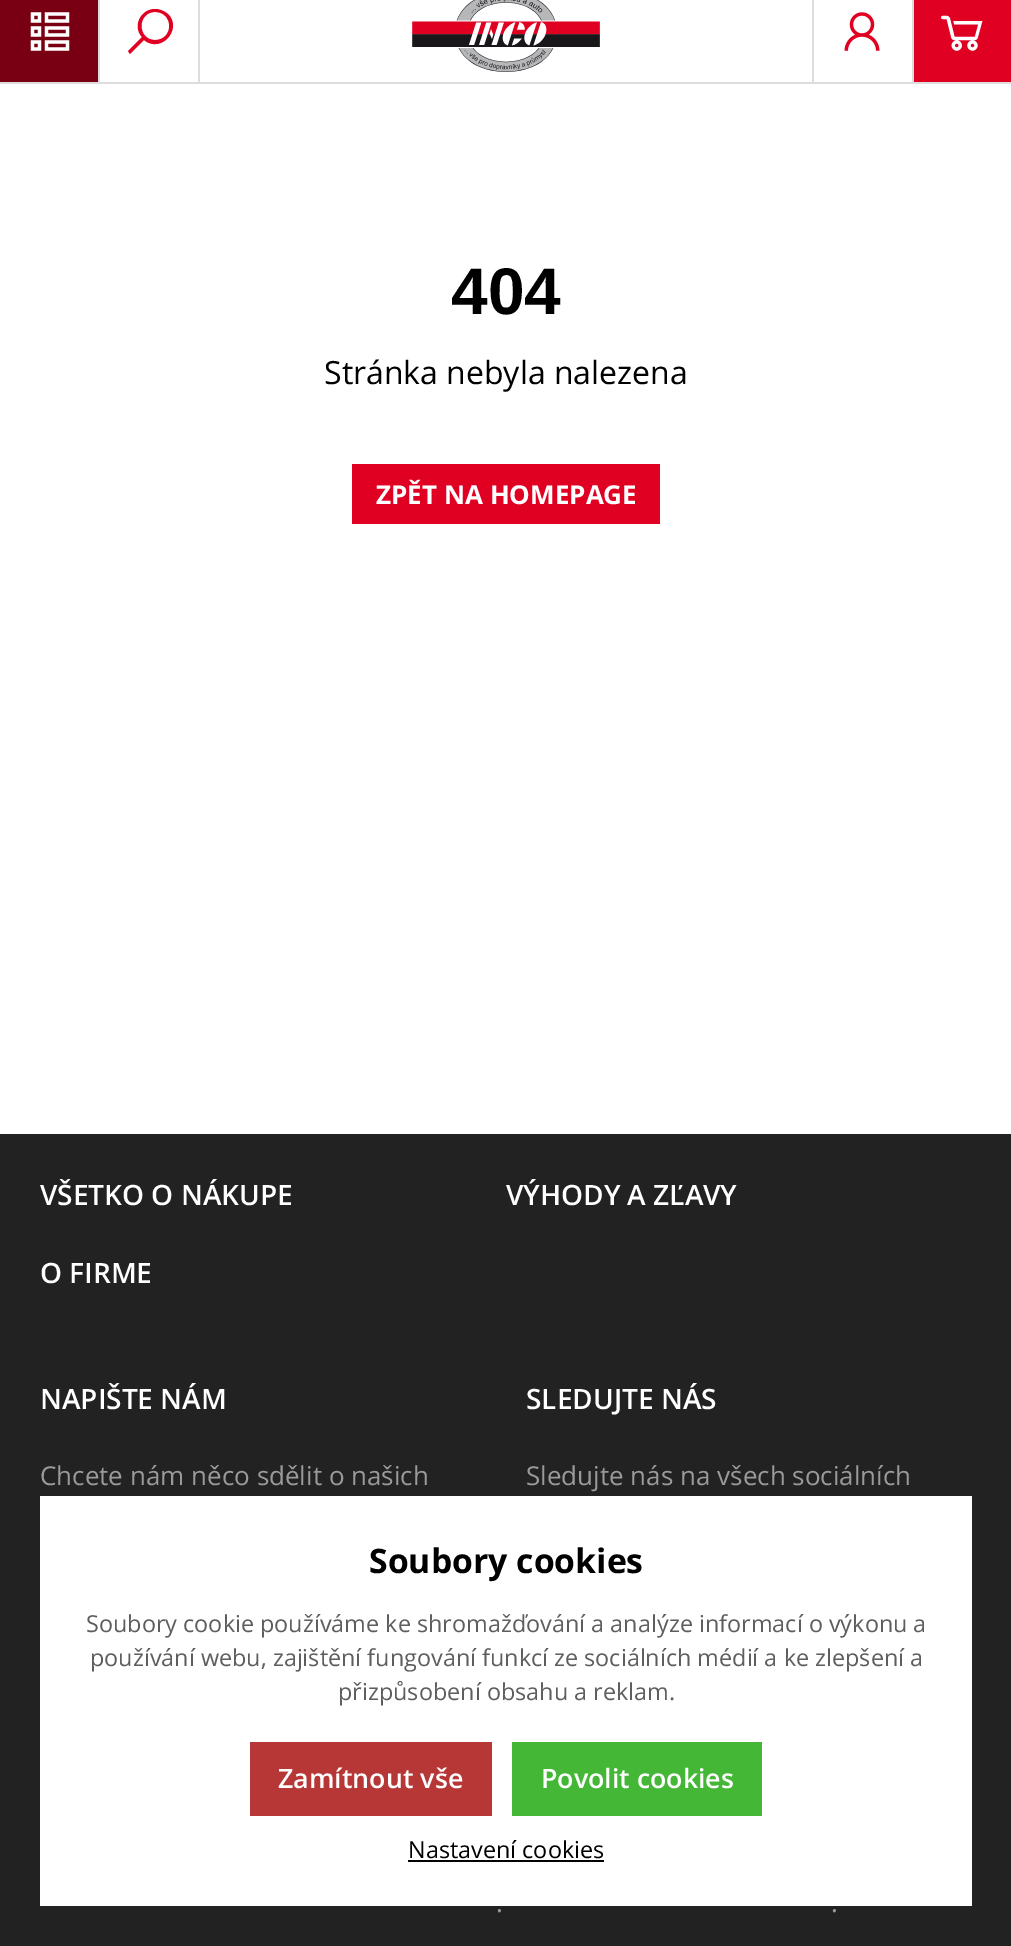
%!PS
<< /PageSize [1011 1946] >> setpagedevice
/rgb { 3 { 255 div 3 1 roll } repeat setrgbcolor } def
/font { [ exch dup neg 0 0 3 -1 roll 0 0 ] selectfont } def
/text { moveto show } def
/picture { 5 dict begin { /h /w /y /x /name } { exch def } forall
  gsave x y translate w h scale
  w h 8 [w 0 0 h 0 0] name (r) file false 3 colorimage grestore end } def
0 1946 translate 1 -1 scale
4 setmiterlimit
255 255 255 rgb
0 0 1011 1946 rectfill
221 221 221 rgb
0 82 1011 2 rectfill
121 0 18 rgb
0 0 98 82 rectfill
221 221 221 rgb
98 0 2 82 rectfill
(img_01.rgb) 30 12 40 39 picture
198 0 2 82 rectfill
223 0 34 rgb
155 9 moveto -14 0 -23 17 -13 28 rcurveto -14 14 rlineto 2 3 rlineto 14 -14 rlineto 17 14 39 -11 24 -26 rcurveto -4 -3 -8 -5 -13 -5 rcurveto closepath 155 40 moveto -18 0 -18 -28 0 -28 rcurveto 19 0 19 28 0 28 rcurveto closepath fill
(img_02.rgb) 412 0 188 72 picture
221 221 221 rgb
812 0 2 82 rectfill
(img_03.rgb) 844 12 36 39 picture
223 0 34 rgb
914 0 97 82 rectfill
221 221 221 rgb
912 0 2 82 rectfill
(img_04.rgb) 941 15 42 36 picture
223 0 34 rgb
352 464 308 60 rectfill
34 34 34 rgb
0 1134 1011 812 rectfill
255 255 255 rgb
40 1496 932 410 rectfill
183 54 54 rgb
250 1742 242 74 rectfill
68 183 54 rgb
512 1742 250 74 rectfill
0 0 0 rgb
408 1860 196 2 rectfill
/LiberationSans-Bold 66 font
(404) 451 314 text
/OpenSans-Regular 32 font
(Stránka nebyla nalezena) 324 384 text
/OpenSans-Bold 26 font
255 255 255 rgb
(ZPĚT NA HOMEPAGE) 376 504 text
/OpenSans-SemiBold 28 font
(VŠETKO O NÁKUPE) 40 1205 text
(VÝHODY A ZĽAVY) 506 1205 text
(O FIRME) 40 1283 text
(NAPIŠTE NÁM) 40 1409 text
/OpenSans-Regular 26 font
154 154 154 rgb
(Chcete nám něco sdělit o našich) 40 1485 text
/OpenSans-SemiBold 28 font
255 255 255 rgb
(SLEDUJTE NÁS) 526 1409 text
/OpenSans-Regular 26 font
154 154 154 rgb
(Sledujte nás na všech sociálních) 526 1485 text
(.) 496 1912 text
(.) 831 1912 text
/OpenSans-Bold 33.75 font
0 0 0 rgb
(Soubory cookies) 369 1573 text
/OpenSans-Regular 23.4 font
94 94 94 rgb
(Soubory cookie používáme ke shromažďování a analýze informací o výkonu a) 86 1632 text
(používání webu, zajištění fungování funkcí ze sociálních médií a ke zlepšení a) 90 1666 text
(přizpůsobení obsahu a reklam.) 338 1700 text
/OpenSans-SemiBold 26.75 font
255 255 255 rgb
(Zamítnout vše) 278 1788 text
(Povolit cookies) 541 1788 text
/OpenSans-Regular 23.4 font
0 0 0 rgb
(Nastavení cookies) 408 1858 text
showpage
